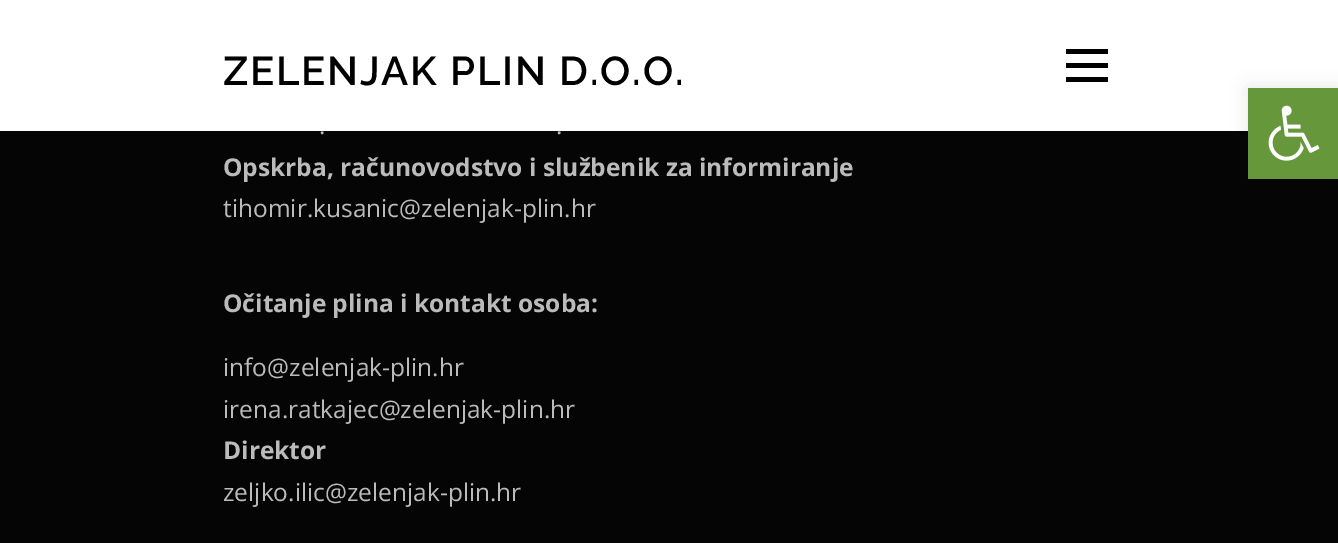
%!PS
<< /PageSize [1338 543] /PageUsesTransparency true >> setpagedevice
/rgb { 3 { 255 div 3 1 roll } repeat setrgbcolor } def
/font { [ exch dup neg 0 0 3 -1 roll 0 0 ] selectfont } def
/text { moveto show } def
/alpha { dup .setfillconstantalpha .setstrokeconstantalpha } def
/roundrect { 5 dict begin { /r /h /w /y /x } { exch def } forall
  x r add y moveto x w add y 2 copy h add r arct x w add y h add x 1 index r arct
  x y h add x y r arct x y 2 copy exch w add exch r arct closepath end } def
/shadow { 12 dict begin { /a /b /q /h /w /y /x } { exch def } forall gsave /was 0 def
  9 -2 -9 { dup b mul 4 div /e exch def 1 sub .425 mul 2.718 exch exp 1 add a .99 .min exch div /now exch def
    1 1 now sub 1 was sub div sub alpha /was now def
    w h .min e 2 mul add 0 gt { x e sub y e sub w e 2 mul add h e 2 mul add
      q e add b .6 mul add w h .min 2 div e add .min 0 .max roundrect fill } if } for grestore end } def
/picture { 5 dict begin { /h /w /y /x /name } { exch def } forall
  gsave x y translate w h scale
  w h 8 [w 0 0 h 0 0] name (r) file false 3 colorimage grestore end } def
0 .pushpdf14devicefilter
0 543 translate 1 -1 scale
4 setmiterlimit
5 5 5 rgb
0 0 1338 543 rectfill
255 255 255 rgb
0 0 1338 131 rectfill
0 0 0 rgb
1066 63 42 5 rectfill
1066 49 42 5 rectfill
1066 77 42 5 rectfill
1248 88 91 91 0 9 0.1 shadow
102 151 58 rgb
1248 88 90 91 rectfill
(img_01.rgb) 1268 105 52 56 picture
/Raleway-SemiBold 40.25 font
0 0 0 rgb
223 85 moveto 1.75 0 (ZELENJAK PLIN D.O.O.) ashow
/OpenSans-Regular 24.5 font
187 187 187 rgb
(.) 319 134 text
(.) 556 134 text
/OpenSans-Bold 24.5 font
(Opskrba, računovodstvo i službenik za informiranje) 223 176 text
/OpenSans-Regular 24.5 font
(tihomir.kusanic@zelenjak-plin.hr) 223 217 text
/OpenSans-Bold 24.5 font
(Očitanje plina i kontakt osoba:) 223 312 text
/OpenSans-Regular 24.5 font
(info@zelenjak-plin.hr) 223 376 text
(irena.ratkajec@zelenjak-plin.hr) 223 418 text
/OpenSans-Bold 24.5 font
(Direktor) 223 459 text
/OpenSans-Regular 24.5 font
(zeljko.ilic@zelenjak-plin.hr) 223 501 text
.poppdf14devicefilter showpage
